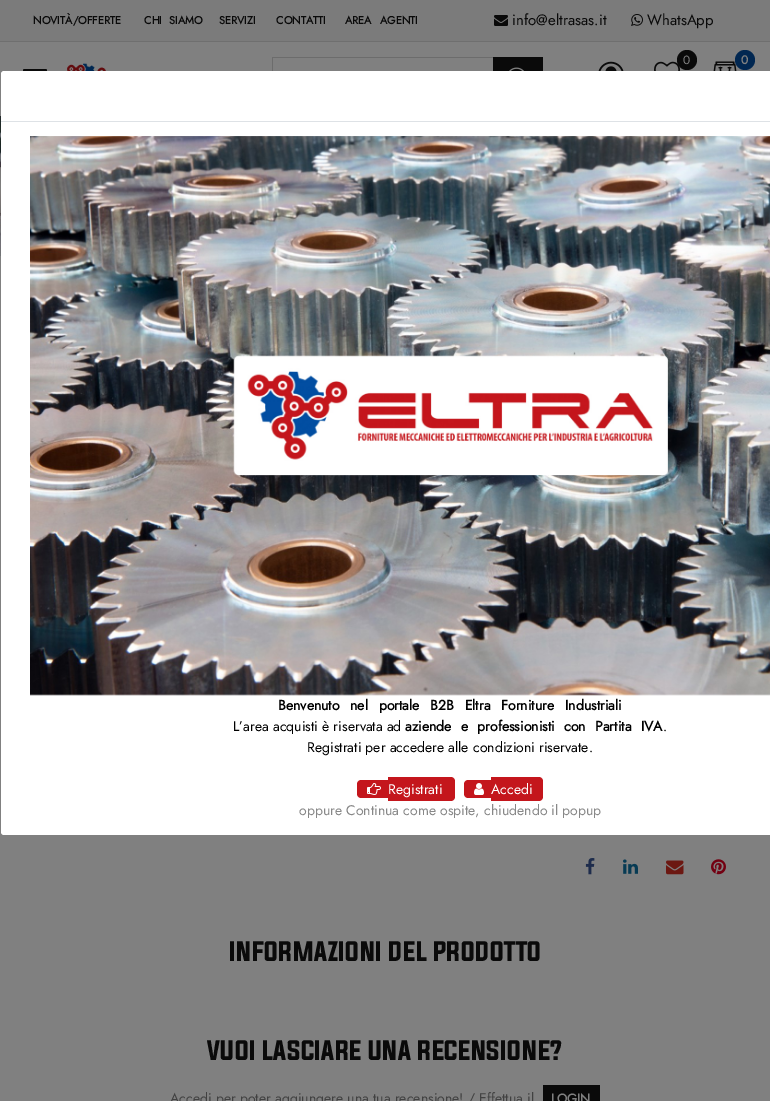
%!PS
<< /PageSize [770 1101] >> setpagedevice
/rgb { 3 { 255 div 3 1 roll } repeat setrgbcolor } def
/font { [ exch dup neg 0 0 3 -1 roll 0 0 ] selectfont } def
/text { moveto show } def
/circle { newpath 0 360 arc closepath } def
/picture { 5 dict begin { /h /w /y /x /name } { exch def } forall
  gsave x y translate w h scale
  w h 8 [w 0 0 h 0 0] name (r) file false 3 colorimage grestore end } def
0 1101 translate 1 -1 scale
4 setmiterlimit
128 128 128 rgb
0 0 770 1101 rectfill
123 123 123 rgb
0 0 770 41 rectfill
(img_01.rgb) 494 15 14 11 picture
(img_02.rgb) 631 14 12 12 picture
111 111 111 rgb
0 41 770 1 rectfill
(img_03.rgb) 23 69 24 2 picture
(img_04.rgb) 67 63 39 8 picture
108 108 108 rgb
272 57 221 1 rectfill
272 57 1 14 rectfill
10 10 10 rgb
493 57 50 14 rectfill
(img_05.rgb) 509 67 15 4 picture
(img_06.rgb) 654 61 26 10 picture
687 60 10 circle fill
(img_07.rgb) 713 61 24 10 picture
1 39 81 rgb
745 60 10 circle fill
(img_08.rgb) 598 61 26 10 picture
(img_09.rgb) 0 116 1 140 picture
255 255 255 rgb
4 71 moveto 766 0 rlineto 0 764 rlineto -766 0 rlineto -1.5 0 -3 -1.5 -3 -3 rcurveto 0 -758 rlineto 0 -1.5 1.5 -3 3 -3 rcurveto closepath fill
222 226 230 rgb
1 121 769 1 rectfill
(img_10.rgb) 30 136 740 560 picture
196 22 28 rgb
361 780 moveto 27 0 rlineto 0 18 rlineto -27 0 rlineto -2 0 -4 -2 -4 -4 rcurveto 0 -10 rlineto 0 -2 2 -4 4 -4 rcurveto closepath fill
388 777 moveto 63 0 rlineto 2 0 4 2 4 4 rcurveto 0 16 rlineto 0 2 -2 4 -4 4 rcurveto -63 0 rlineto closepath fill
(img_11.rgb) 367 783 14 12 picture
468 780 moveto 23 0 rlineto 0 18 rlineto -23 0 rlineto -2 0 -4 -2 -4 -4 rcurveto 0 -10 rlineto 0 -2 2 -4 4 -4 rcurveto closepath fill
491 777 moveto 48 0 rlineto 2 0 4 2 4 4 rcurveto 0 16 rlineto 0 2 -2 4 -4 4 rcurveto -48 0 rlineto closepath fill
(img_12.rgb) 474 783 10 12 picture
(img_13.rgb) 585 858 10 17 picture
(img_14.rgb) 623 859 15 15 picture
(img_15.rgb) 666 860 18 15 picture
(img_16.rgb) 711 859 15 16 picture
10 10 10 rgb
543 1085 57 16 rectfill
/Jost-Bold 11 font
(NOVITÀ/OFFERTE) 33 24 text
144 24 moveto 4 0 32 (CHI SIAMO) widthshow
(SERVIZI) 219 24 text
(CONTATTI) 276 24 text
345 24 moveto 5 0 32 (AREA AGENTI) widthshow
/Jost-Regular 15 font
(info@eltrasas.it) 512 25 text
(WhatsApp) 647 25 text
/Jost-Regular 12 font
128 128 128 rgb
(0) 683 64 text
/Jost-Bold 12 font
(0) 741 64 text
/Jost-Bold 14 font
0 0 0 rgb
278 710 moveto 6.5 0 32 (Benvenuto nel portale B2B Eltra Forniture Industriali) widthshow
/Jost-Regular 14 font
(L’area acquisti è riservata ad) 233 731 text
/Jost-Bold 14 font
405 731 moveto 5 0 32 (aziende e professionisti con Partita IVA) widthshow
/Jost-Regular 14 font
(.) 663 731 text
(Registrati per accedere alle condizioni riservate.) 307 752 text
255 255 255 rgb
(Registrati) 388 794 text
(Accedi) 491 794 text
136 136 136 rgb
(oppure Continua come ospite, chiudendo il popup) 299 815 text
/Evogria-Regular 24 font
10 10 10 rgb
(INFORMAZIONI DEL PRODOTTO) 229 961 text
(VUOI LASCIARE UNA RECENSIONE?) 207 1060 text
/Jost-Regular 14 font
65 65 65 rgb
(Accedi per poter aggiungere una tua recensione! / Effettua il) 170 1103 text
/Jost-Bold 13 font
128 128 128 rgb
(LOGIN) 551 1103 text
showpage
